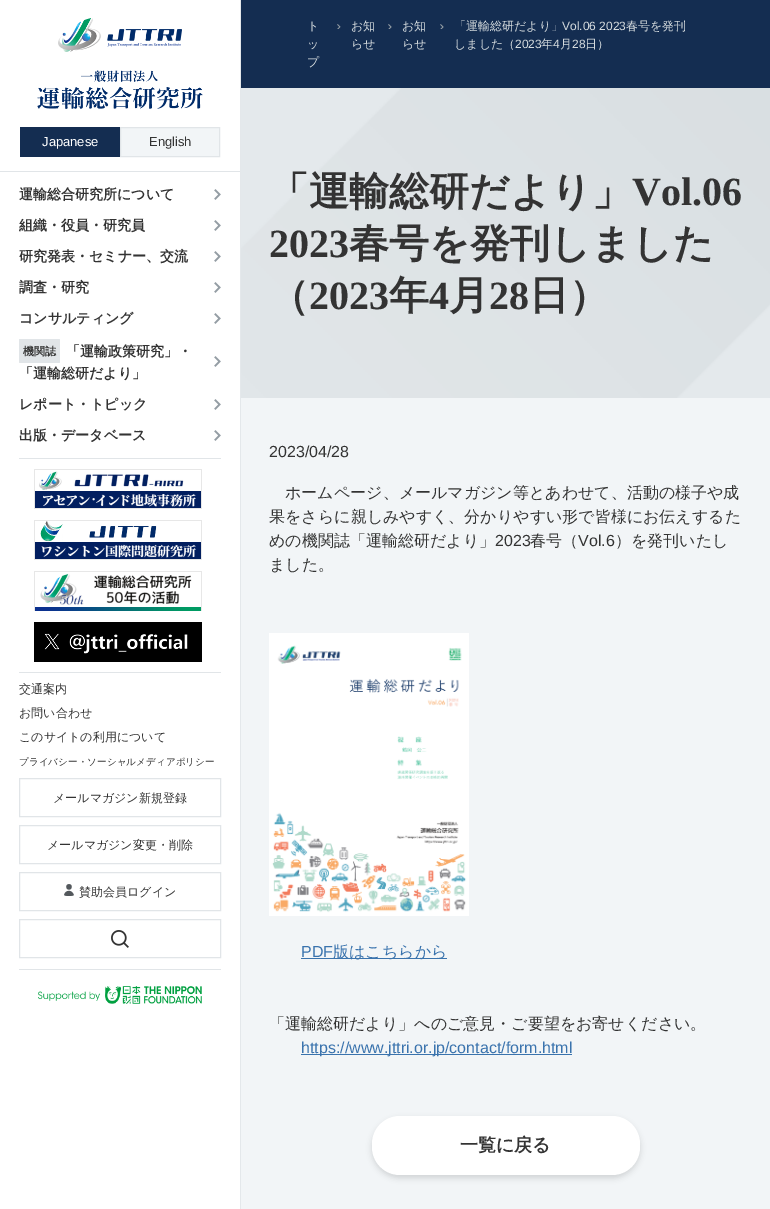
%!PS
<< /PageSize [770 1209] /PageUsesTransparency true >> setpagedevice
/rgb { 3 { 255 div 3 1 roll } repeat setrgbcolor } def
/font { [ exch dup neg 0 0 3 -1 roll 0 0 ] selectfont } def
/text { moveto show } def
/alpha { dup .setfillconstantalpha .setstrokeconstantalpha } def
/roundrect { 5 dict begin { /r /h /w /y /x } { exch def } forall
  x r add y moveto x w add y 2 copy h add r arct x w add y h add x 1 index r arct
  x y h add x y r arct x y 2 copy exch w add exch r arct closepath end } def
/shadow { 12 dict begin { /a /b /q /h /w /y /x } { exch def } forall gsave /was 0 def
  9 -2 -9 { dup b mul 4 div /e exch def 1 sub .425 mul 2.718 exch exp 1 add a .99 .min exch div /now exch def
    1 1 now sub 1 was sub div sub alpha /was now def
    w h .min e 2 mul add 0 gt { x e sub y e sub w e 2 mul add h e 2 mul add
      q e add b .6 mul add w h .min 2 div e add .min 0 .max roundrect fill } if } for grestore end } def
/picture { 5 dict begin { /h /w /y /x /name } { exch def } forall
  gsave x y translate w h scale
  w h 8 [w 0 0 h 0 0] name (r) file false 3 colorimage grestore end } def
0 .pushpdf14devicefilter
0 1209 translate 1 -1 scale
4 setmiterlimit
242 245 247 rgb
0 0 770 1209 rectfill
255 255 255 rgb
0 0 240 1209 rectfill
228 232 235 rgb
240 0 1 1209 rectfill
(img_01.rgb) 58 18 124 34 picture
(img_02.rgb) 37 70 166 39 picture
225 229 232 rgb
0 171 240 1 rectfill
20 45 81 rgb
20 127 100 30 rectfill
242 245 247 rgb
120.5 127.5 moveto 99 0 rlineto 0 29 rlineto -99 0 rlineto closepath gsave fill grestore
225 229 232 rgb
stroke
(img_03.rgb) 214 189 7 11 picture
(img_03.rgb) 214 220 7 11 picture
(img_03.rgb) 214 251 7 11 picture
(img_03.rgb) 214 282 7 11 picture
(img_03.rgb) 214 313 7 11 picture
19 339 41 24 1 roundrect fill
(img_03.rgb) 214 356 7 11 picture
(img_03.rgb) 214 399 7 11 picture
(img_03.rgb) 214 430 7 11 picture
19 458 202 1 rectfill
(img_04.rgb) 34 469 168 40 picture
(img_05.rgb) 34 520 168 40 picture
(img_06.rgb) 34 571 168 40 picture
(img_07.rgb) 34 622 168 40 picture
19 672 202 1 rectfill
19.5 778.5 201 38 rectstroke
19.5 825.5 201 38 rectstroke
19.5 872.5 201 38 rectstroke
(img_08.rgb) 64 884 10 12 picture
19 969 202 1 rectfill
19.5 919.5 201 38 rectstroke
(img_09.rgb) 111 930 18 18 picture
(img_10.rgb) 38 986 164 18 picture
20 45 81 rgb
241 0 529 88 rectfill
(img_11.rgb) 337 24 4 5 picture
(img_12.rgb) 388 24 4 5 picture
(img_12.rgb) 440 24 4 5 picture
(img_13.rgb) 241 88 529 310 picture
(img_14.rgb) 269 633 200 283 picture
58 115 173 rgb
301 958 146 1 rectfill
301 1054 271 1 rectfill
21 24 26 rgb
372 1119 268 59 28 3 0.15 shadow
255 255 255 rgb
372 1116 268 59 28 roundrect fill
/LiberationSans-Regular 13 font
(Japanese) 42 146 text
51 51 51 rgb
(English) 149 146 text
/WenQuanYiZenHei-Bold 14 font
(運輸総合研究所について) 19 199 text
(組織・役員・研究員) 19 230 text
(研究発表・セミナー、交流) 19 261 text
(調査・研究) 19 292 text
(コンサルティング) 19 323 text
/WenQuanYiZenHei-Bold 11 font
(機関誌) 23 355 text
/WenQuanYiZenHei-Bold 14 font
(「運輸政策研究」・) 66 356 text
(「運輸総研だより」) 19 378 text
(レポート・トピック) 19 409 text
(出版・データベース) 19 440 text
/WenQuanYiZenHei-Medium 12 font
(交通案内) 19 693 text
(お問い合わせ) 19 717 text
(このサイトの利用について) 19 741 text
/WenQuanYiZenHei-Medium 9.6 font
(プライバシー・ソーシャルメディアポリシー) 19 765 text
/WenQuanYiZenHei-Medium 12 font
(メールマガジン新規登録) 53 802 text
(メールマガジン変更・削除) 47 849 text
(賛助会員ログイン) 79 896 text
213 219 222 rgb
(ト) 307 30 text
(ッ) 307 48 text
(プ) 307 66 text
(お知) 351 30 text
(らせ) 351 48 text
(お知) 402 30 text
(らせ) 402 48 text
(「運輸総研だより」) 454 30 text
/LiberationSans-Regular 12 font
(Vol.06 2023) 562 30 text
/WenQuanYiZenHei-Medium 12 font
(春号を発刊) 626 30 text
(しました（) 454 48 text
/LiberationSans-Regular 12 font
(2023) 515 48 text
/WenQuanYiZenHei-Medium 12 font
(年) 541 48 text
/LiberationSans-Regular 12 font
(4) 553 48 text
/WenQuanYiZenHei-Medium 12 font
(月) 560 48 text
/LiberationSans-Regular 12 font
(28) 572 48 text
/WenQuanYiZenHei-Medium 12 font
(日）) 585 48 text
/WenQuanYiZenHei-Bold 40 font
51 51 51 rgb
(「運輸総研だより」) 269 205 text
/LiberationSerif-Bold 40 font
(Vol.06) 632 205 text
(2023) 269 257 text
/WenQuanYiZenHei-Bold 40 font
(春号を発刊しました) 349 257 text
(（) 269 309 text
/LiberationSerif-Bold 40 font
(2023) 309 309 text
/WenQuanYiZenHei-Bold 40 font
(年) 389 309 text
/LiberationSerif-Bold 40 font
(4) 429 309 text
/WenQuanYiZenHei-Bold 40 font
(月) 449 309 text
/LiberationSerif-Bold 40 font
(28) 489 309 text
/WenQuanYiZenHei-Bold 40 font
(日）) 529 309 text
/LiberationSans-Regular 16 font
(2023/04/28) 269 457 text
/WenQuanYiZenHei-Medium 16 font
(ホームページ、メールマガジン等とあわせて、活動の様子や成) 285 498 text
(果をさらに親しみやすく、分かりやすい形で皆様にお伝えするた) 269 522 text
(めの機関誌「運輸総研だより」) 269 546 text
/LiberationSans-Regular 16 font
(2023) 495 546 text
/WenQuanYiZenHei-Medium 16 font
(春号（) 530 546 text
/LiberationSans-Regular 16 font
(Vol.6) 578 546 text
/WenQuanYiZenHei-Medium 16 font
(）を発刊いたし) 615 546 text
(ました。) 269 570 text
/LiberationSans-Regular 16 font
58 115 173 rgb
(PDF) 301 957 text
/WenQuanYiZenHei-Medium 16 font
(版はこちらから) 333 957 text
51 51 51 rgb
(「運輸総研だより」へのご意見・ご要望をお寄せください。) 269 1029 text
/LiberationSans-Regular 16 font
58 115 173 rgb
(https://www.jttri.or.jp/contact/form.html) 301 1053 text
/WenQuanYiZenHei-Bold 18 font
51 51 51 rgb
(一覧に戻る) 460 1151 text
.poppdf14devicefilter showpage
